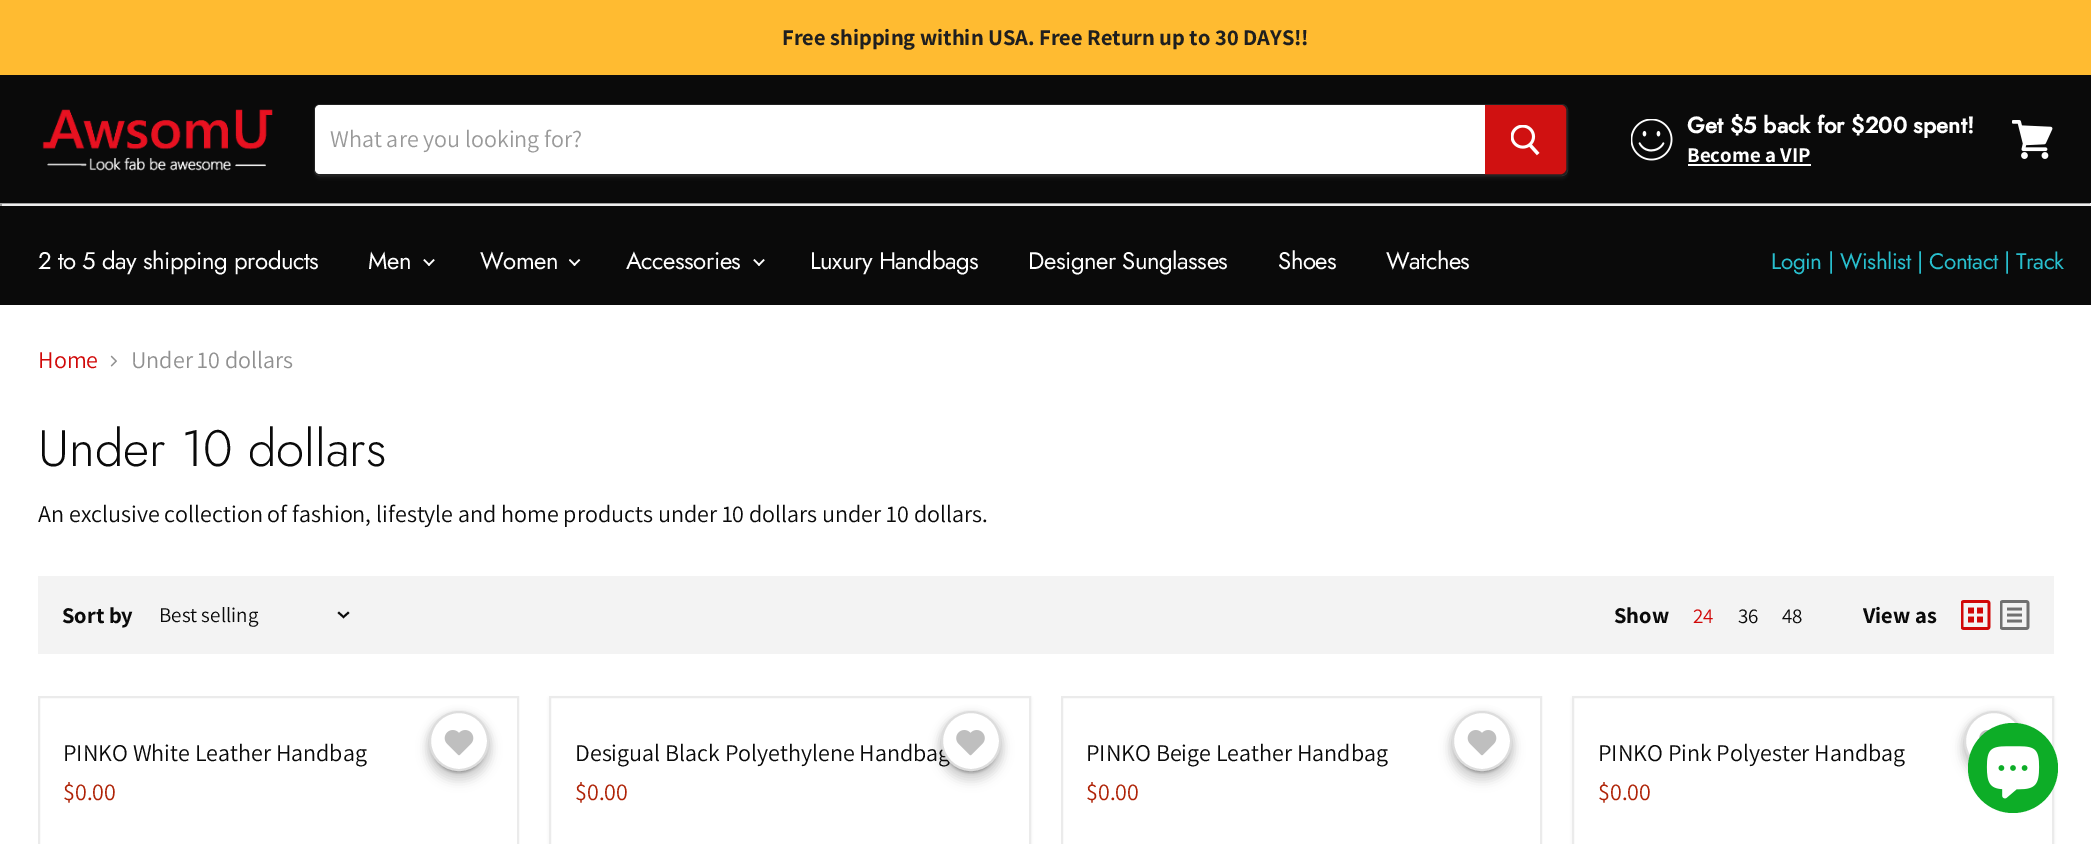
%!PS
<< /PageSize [2091 844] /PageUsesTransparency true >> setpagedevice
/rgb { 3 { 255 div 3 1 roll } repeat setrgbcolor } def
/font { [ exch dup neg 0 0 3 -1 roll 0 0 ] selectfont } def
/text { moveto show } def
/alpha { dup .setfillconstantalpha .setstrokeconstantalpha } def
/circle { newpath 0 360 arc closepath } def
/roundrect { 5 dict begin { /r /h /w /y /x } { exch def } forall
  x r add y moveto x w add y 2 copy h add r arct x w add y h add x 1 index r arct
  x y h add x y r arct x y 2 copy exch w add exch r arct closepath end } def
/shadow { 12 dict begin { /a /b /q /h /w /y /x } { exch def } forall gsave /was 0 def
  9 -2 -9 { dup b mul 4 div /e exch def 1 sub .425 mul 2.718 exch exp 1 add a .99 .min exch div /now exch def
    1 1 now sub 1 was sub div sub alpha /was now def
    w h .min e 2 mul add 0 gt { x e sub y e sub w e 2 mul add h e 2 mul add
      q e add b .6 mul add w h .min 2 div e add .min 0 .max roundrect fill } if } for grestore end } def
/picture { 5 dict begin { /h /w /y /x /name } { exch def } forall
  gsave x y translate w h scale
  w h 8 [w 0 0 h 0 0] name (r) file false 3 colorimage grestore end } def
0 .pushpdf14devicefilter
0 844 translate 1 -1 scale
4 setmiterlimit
255 255 255 rgb
0 0 2091 844 rectfill
255 187 49 rgb
0 0 2091 75 rectfill
10 10 10 rgb
0 75 2091 230 rectfill
(img_01.rgb) 42 109 231 62 picture
gsave
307 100 moveto 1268 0 rlineto 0 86 rlineto -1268 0 rlineto closepath 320 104 moveto 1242 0 rlineto 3.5 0 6 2.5 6 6 rcurveto 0 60 rlineto 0 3.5 -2.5 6 -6 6 rcurveto -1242 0 rlineto -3.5 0 -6 -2.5 -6 -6 rcurveto 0 -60 rlineto 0 -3.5 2.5 -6 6 -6 rcurveto closepath eoclip newpath
128 128 128 rgb
314 107 1254 72 6 2 0.11 shadow
grestore
0.2 alpha
128 128 128 rgb
2 setlinewidth
315 105 1252 70 5 roundrect stroke
1 alpha
255 255 255 rgb
320 105 moveto 1165 0 rlineto 0 69 rlineto -1165 0 rlineto -3 0 -5 -2 -5 -5 rcurveto 0 -59 rlineto 0 -3 2 -5 5 -5 rcurveto closepath fill
208 17 17 rgb
1486 106 moveto 75 0 rlineto 2 0 4 2 4 4 rcurveto 0 59 rlineto 0 2 -2 4 -4 4 rcurveto -75 0 rlineto closepath gsave fill grestore
stroke
(img_02.rgb) 1511 125 29 31 picture
(img_03.rgb) 1631 119 42 42 picture
255 255 255 rgb
1688 164 123 2 rectfill
(img_04.rgb) 2012 120 41 39 picture
159 159 159 rgb
0 203 2091 1 rectfill
238 238 238 rgb
2090 203 1 3 rectfill
0 204 2091 2 rectfill
159 159 159 rgb
0 203 2 3 rectfill
(img_05.rgb) 423 259 12 7 picture
(img_06.rgb) 569 259 12 7 picture
(img_05.rgb) 753 259 12 7 picture
(img_07.rgb) 110 355 7 12 picture
243 243 243 rgb
38 576 2016 78 rectfill
10 10 10 rgb
1.9 setlinewidth
2 setlinecap
343.5 617 moveto 4.5 -4 rlineto 343.5 617 moveto -4.5 -4 rlineto stroke
(img_08.rgb) 1961 600 30 30 picture
(img_09.rgb) 2000 600 30 30 picture
235 235 235 rgb
2 setlinewidth
0 setlinecap
39 697 479 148 rectstroke
0 0 0 rgb
432 719 54 54 27 1 0.2 shadow
429 713 60 60 30 4 0.12 shadow
426 716 66 66 33 5 0.14 shadow
255 255 255 rgb
459 741 29 circle gsave fill grestore
221 221 221 rgb
stroke
(img_10.rgb) 444 730 30 26 picture
128 128 128 rgb
549 698 482 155 0 3 0.11 shadow
255 255 255 rgb
550 697 moveto 480 0 rlineto 0 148 rlineto -480 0 rlineto closepath gsave fill grestore
235 235 235 rgb
stroke
0 0 0 rgb
944 719 54 54 27 1 0.2 shadow
941 713 60 60 30 4 0.12 shadow
938 716 66 66 33 5 0.14 shadow
235 235 235 rgb
1062 697 479 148 rectstroke
0 0 0 rgb
1455 719 54 54 27 1 0.2 shadow
1452 713 60 60 30 4 0.12 shadow
1449 716 66 66 33 5 0.14 shadow
255 255 255 rgb
1482 741 29 circle gsave fill grestore
221 221 221 rgb
stroke
(img_10.rgb) 1467 730 30 26 picture
128 128 128 rgb
1572 698 482 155 0 3 0.11 shadow
255 255 255 rgb
1573 697 moveto 480 0 rlineto 0 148 rlineto -480 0 rlineto closepath gsave fill grestore
235 235 235 rgb
stroke
0 0 0 rgb
1964 713 60 60 30 4 0.12 shadow
1961 716 66 66 33 5 0.14 shadow
255 255 255 rgb
1994 741 29 circle gsave fill grestore
221 221 221 rgb
stroke
(img_12.rgb) 1979 730 10 9 picture
13 173 39 rgb
2013 768 45 circle fill
(img_13.rgb) 1986 746 54 53 picture
/Assistant-Bold 22.5 font
31 31 31 rgb
(Free shipping within USA. Free Return up to 30 DAYS!!) 782 45 text
/Assistant-Regular 24 font
153 153 153 rgb
(What are you looking for?) 330 147 text
/Jost-Bold 22.5 font
255 255 255 rgb
(Get $5 back for $200 spent!) 1687 133 text
/Assistant-Bold 21 font
(Become a VIP) 1687 162 text
/Jost-Regular 24 font
38 269 moveto -0.5 0 (2 to 5 day shipping products) ashow
368 269 moveto -0.5 0 (Men) ashow
480 269 moveto -0.5 0 (Women) ashow
626 269 moveto -0.5 0 (Accessories) ashow
810 269 moveto -0.5 0 (Luxury Handbags) ashow
1028 269 moveto -0.5 0 (Designer Sunglasses) ashow
1278 269 moveto -0.5 0 (Shoes) ashow
1386 269 moveto -0.5 0 (Watches) ashow
/Jost-Regular 22.5 font
40 191 206 rgb
1771 269 moveto -0.45 0 (Login | Wishlist | Contact | Track) ashow
/Assistant-Regular 24 font
209 8 8 rgb
(Home) 38 368 text
144 144 144 rgb
(Under 10 dollars) 131 368 text
/Jost-Light 51 font
10 10 10 rgb
(Under 10 dollars) 38 466 text
/Assistant-Regular 24 font
(An exclusive collection of fashion, lifestyle and home products under 10 dollars under 10 dollars.) 38 522 text
/Assistant-Bold 22.5 font
(Sort by) 62 623 text
/Assistant-Regular 21 font
(Best selling) 159 622 text
/Assistant-Bold 22.5 font
(Show) 1614 623 text
/Assistant-Regular 21 font
209 8 8 rgb
(24) 1693 623 text
10 10 10 rgb
(36) 1738 623 text
(48) 1782 623 text
/Assistant-Bold 22.5 font
(View as) 1863 623 text
/Assistant-Regular 24 font
(PINKO White Leather Handbag) 63 761 text
175 35 7 rgb
($0.00) 63 800 text
10 10 10 rgb
(Desigual Black Polyethylene Handbag) 575 761 text
175 35 7 rgb
($0.00) 575 800 text
255 255 255 rgb
971 741 29 circle gsave fill grestore
221 221 221 rgb
stroke
(img_11.rgb) 956 730 29 26 picture
10 10 10 rgb
(PINKO Beige Leather Handbag) 1086 761 text
175 35 7 rgb
($0.00) 1086 800 text
10 10 10 rgb
(PINKO Pink Polyester Handbag) 1598 761 text
175 35 7 rgb
($0.00) 1598 800 text
.poppdf14devicefilter showpage
